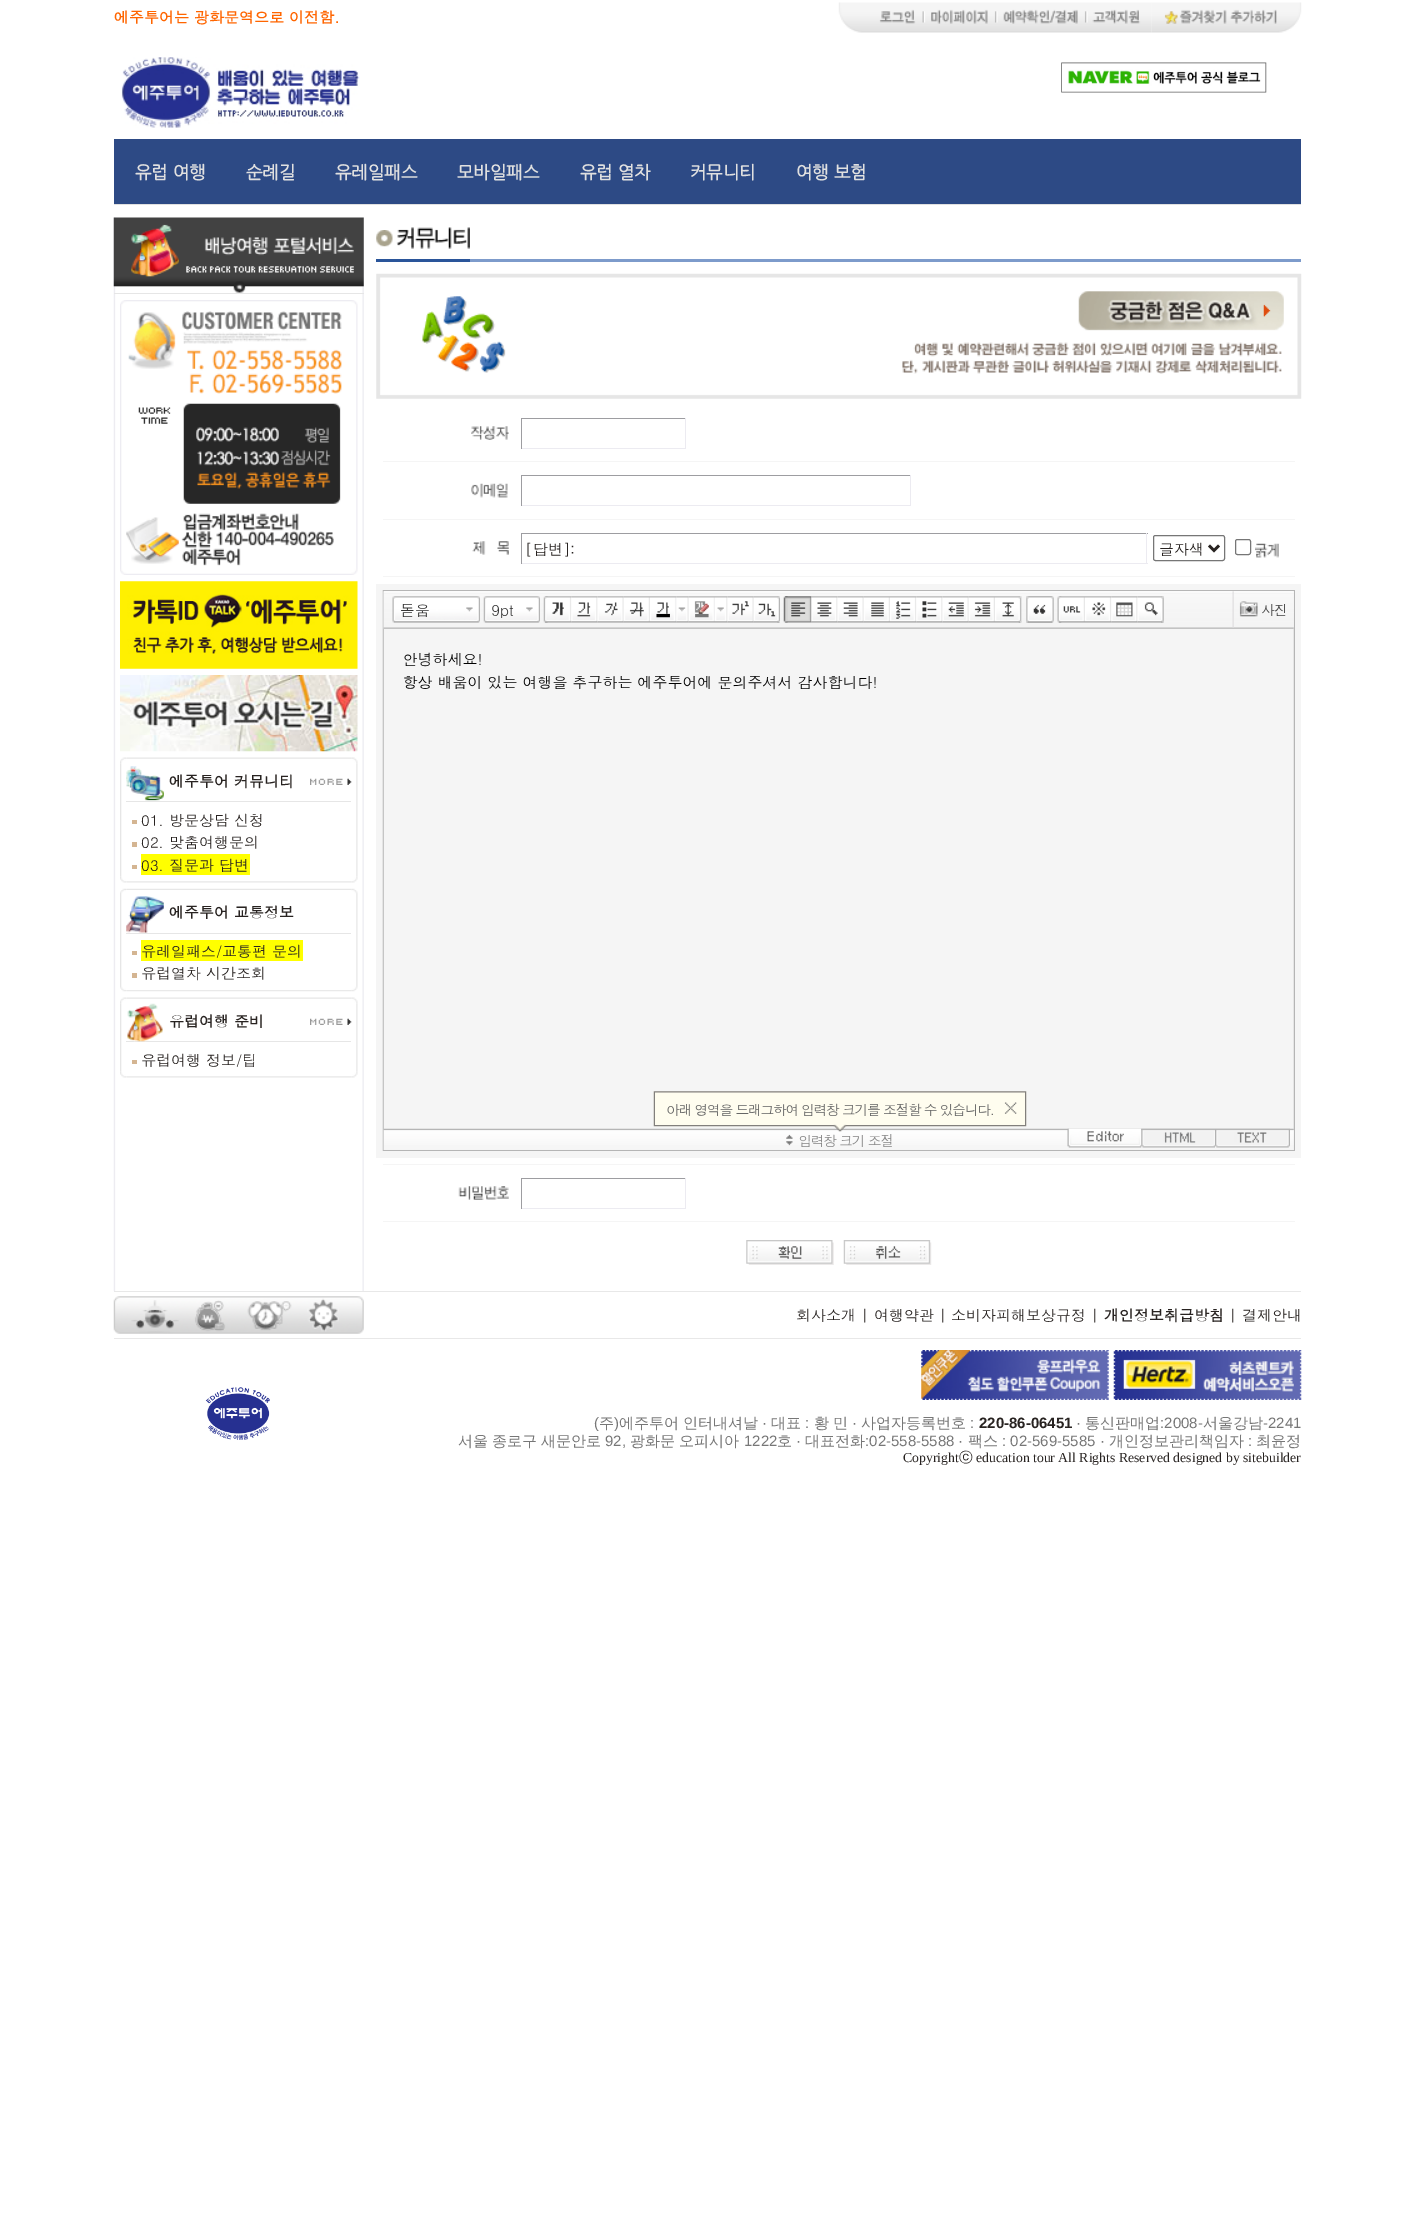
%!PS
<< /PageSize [1415 2236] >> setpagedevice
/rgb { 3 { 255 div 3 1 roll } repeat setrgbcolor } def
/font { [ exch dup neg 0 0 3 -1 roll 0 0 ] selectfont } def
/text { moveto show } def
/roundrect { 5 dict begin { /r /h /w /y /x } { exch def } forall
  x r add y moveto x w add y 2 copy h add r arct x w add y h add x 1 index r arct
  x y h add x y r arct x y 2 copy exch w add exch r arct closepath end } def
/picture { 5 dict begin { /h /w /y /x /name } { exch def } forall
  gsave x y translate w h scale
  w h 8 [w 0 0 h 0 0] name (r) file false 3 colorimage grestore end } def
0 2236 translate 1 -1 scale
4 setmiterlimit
255 255 255 rgb
0 0 1415 2236 rectfill
(img_01.rgb) 838 2 314 31 picture
(img_02.rgb) 1151 2 151 31 picture
(img_03.rgb) 121 57 239 71 picture
(img_04.rgb) 1061 62 206 31 picture
45 74 133 rgb
114 139 1187 65 rectfill
224 224 224 rgb
114 204 1187 1 rectfill
(img_05.rgb) 376 230 17 17 picture
(img_06.rgb) 396 227 74 22 picture
42 85 154 rgb
376 259 94 3 rectfill
125 155 203 rgb
470 259 831 3 rectfill
(img_07.rgb) 376 273 926 126 picture
(img_08.rgb) 471 426 38 14 picture
157 157 161 rgb
521 418 165 1 rectfill
236 235 241 rgb
685 418 1 31 rectfill
521 448 165 1 rectfill
157 157 161 rgb
521 418 1 31 rectfill
245 245 245 rgb
383 461 912 1 rectfill
(img_09.rgb) 471 483 37 15 picture
157 157 161 rgb
521 475 390 1 rectfill
236 235 241 rgb
910 475 1 31 rectfill
521 505 390 1 rectfill
157 157 161 rgb
521 475 1 31 rectfill
245 245 245 rgb
383 519 912 1 rectfill
(img_10.rgb) 472 541 37 14 picture
157 157 161 rgb
521 533 627 1 rectfill
236 235 241 rgb
1146 533 1 31 rectfill
521 563 627 1 rectfill
157 157 161 rgb
521 533 1 31 rectfill
118 118 118 rgb
1153.5 535.5 71 25 2 roundrect stroke
40 35 33 rgb
2.5 setlinewidth
1209 545.5 moveto 5 5 rlineto 5 -5 rlineto stroke
118 118 118 rgb
1 setlinewidth
1235.5 539.5 15 15 2 roundrect stroke
(img_11.rgb) 1255 543 24 15 picture
245 245 245 rgb
383 576 912 1 rectfill
376 584 925 574 rectfill
(img_12.rgb) 382 590 913 561 picture
383 1164 912 1 rectfill
(img_13.rgb) 458 1186 51 14 picture
157 157 161 rgb
521 1178 165 1 rectfill
236 235 241 rgb
685 1178 1 31 rectfill
521 1208 165 1 rectfill
157 157 161 rgb
521 1178 1 31 rectfill
245 245 245 rgb
383 1221 912 1 rectfill
(img_14.rgb) 746 1240 88 25 picture
(img_15.rgb) 843 1240 89 25 picture
(img_16.rgb) 113 217 251 1075 picture
(img_17.rgb) 113 217 251 76 picture
230 230 230 rgb
114 293 250 1 rectfill
(img_18.rgb) 120 300 238 275 picture
(img_19.rgb) 120 581 238 88 picture
(img_20.rgb) 120 675 238 77 picture
(img_24.rgb) 120 763 2 114 picture
(img_21.rgb) 120 757 6 7 picture
(img_22.rgb) 126 757 226 2 picture
(img_27.rgb) 356 763 2 114 picture
(img_23.rgb) 351 757 7 7 picture
(img_25.rgb) 126 766 38 35 picture
(img_26.rgb) 310 778 42 7 picture
126 801 225 1 rectfill
212 181 146 rgb
132 820 5 4 rectfill
132 842 5 5 rectfill
132 865 5 4 rectfill
255 255 0 rgb
141 854 109 21 rectfill
(img_28.rgb) 120 876 6 7 picture
(img_29.rgb) 126 881 226 2 picture
(img_30.rgb) 351 876 7 7 picture
(img_31.rgb) 120 888 6 7 picture
(img_32.rgb) 126 888 226 2 picture
(img_33.rgb) 351 888 7 7 picture
(img_34.rgb) 120 895 2 90 picture
(img_35.rgb) 126 896 38 37 picture
230 230 230 rgb
126 933 225 1 rectfill
212 181 146 rgb
132 951 5 4 rectfill
255 255 0 rgb
141 940 162 21 rectfill
212 181 146 rgb
132 973 5 5 rectfill
(img_36.rgb) 356 895 2 90 picture
(img_37.rgb) 120 985 6 7 picture
(img_38.rgb) 126 990 226 2 picture
(img_39.rgb) 351 985 7 7 picture
(img_40.rgb) 120 1003 2 69 picture
(img_21.rgb) 120 997 6 7 picture
(img_22.rgb) 126 997 226 2 picture
(img_43.rgb) 356 1003 2 69 picture
(img_23.rgb) 351 997 7 7 picture
230 230 230 rgb
126 1041 225 1 rectfill
(img_41.rgb) 127 1003 36 39 picture
(img_42.rgb) 310 1018 42 7 picture
212 181 146 rgb
132 1060 5 4 rectfill
(img_28.rgb) 120 1071 6 7 picture
(img_29.rgb) 126 1076 226 2 picture
(img_30.rgb) 351 1071 7 7 picture
232 232 232 rgb
114 1291 1187 1 rectfill
(img_44.rgb) 113 1296 251 38 picture
114 1338 1187 1 rectfill
(img_45.rgb) 205 1387 65 53 picture
(img_46.rgb) 921 1350 188 50 picture
(img_47.rgb) 1113 1350 189 50 picture
/Dotum-Bold 15 font
255 101 0 rgb
(에주투어는 광화문역으로 이전함.) 114 23 text
/NanumGothic-Bold 17.5 font
224 224 224 rgb
(유럽 여행) 135 178 text
(순례길) 246 178 text
(유레일패스) 335 178 text
(모바일패스) 457 178 text
(유럽 열차) 580 178 text
(커뮤니티) 690 178 text
(여행 보험) 796 178 text
/Dotum-Regular 15 font
40 35 33 rgb
([답변]:) 525 555 text
(글자색) 1159 555 text
/Dotum-Bold 15 font
(에주투어 커뮤니티) 169 787 text
/Dotum-Regular 15 font
(01. 방문상담 신청) 141 826 text
(02. 맞춤여행문의) 141 848 text
(03. 질문과 답변) 141 871 text
/Dotum-Bold 15 font
(에주투어 교통정보) 169 918 text
/Dotum-Regular 15 font
(유레일패스/교통편 문의) 141 957 text
(유럽열차 시간조회) 141 979 text
/Dotum-Bold 15 font
(유럽여행 준비) 169 1027 text
/Dotum-Regular 15 font
(유럽여행 정보/팁) 141 1066 text
(회사소개 | 여행약관 | 소비자피해보상규정 |) 796 1321 text
/Dotum-Bold 15 font
(개인정보취급방침) 1104 1321 text
/Dotum-Regular 15 font
(| 결제안내) 1229 1321 text
/LiberationSans-Regular 15 font
119 119 119 rgb
(\() 594 1428 text
/WenQuanYiZenHei-Medium 15 font
(주) 599 1428 text
/LiberationSans-Regular 15 font
(\)) 614 1428 text
/WenQuanYiZenHei-Medium 15 font
(에주투어 인터내셔날) 619 1428 text
/LiberationSans-Regular 15 font
(·) 762 1428 text
/WenQuanYiZenHei-Medium 15 font
(대표) 771 1428 text
/LiberationSans-Regular 15 font
(:) 805 1428 text
/WenQuanYiZenHei-Medium 15 font
(황 민) 814 1428 text
/LiberationSans-Regular 15 font
(·) 852 1428 text
/WenQuanYiZenHei-Medium 15 font
(사업자등록번호) 861 1428 text
/LiberationSans-Regular 15 font
(:) 970 1428 text
/LiberationSans-Bold 15 font
40 35 33 rgb
(220-86-06451) 979 1428 text
/LiberationSans-Regular 15 font
119 119 119 rgb
(·) 1076 1428 text
/WenQuanYiZenHei-Medium 15 font
(통신판매업) 1085 1428 text
/LiberationSans-Regular 15 font
(:2008-) 1160 1428 text
/WenQuanYiZenHei-Medium 15 font
(서울강남) 1203 1428 text
/LiberationSans-Regular 15 font
(-2241) 1263 1428 text
/WenQuanYiZenHei-Medium 15 font
(서울) 458 1446 text
(종로구) 492 1446 text
(새문안로) 541 1446 text
/LiberationSans-Regular 15 font
(92,) 605 1446 text
/WenQuanYiZenHei-Medium 15 font
(광화문) 630 1446 text
(오피시아) 679 1446 text
/LiberationSans-Regular 15 font
(1222) 744 1446 text
/WenQuanYiZenHei-Medium 15 font
(호) 777 1446 text
/LiberationSans-Regular 15 font
(·) 796 1446 text
/WenQuanYiZenHei-Medium 15 font
(대표전화) 805 1446 text
/LiberationSans-Regular 15 font
(:02-558-5588 ·) 865 1446 text
/WenQuanYiZenHei-Medium 15 font
(팩스) 968 1446 text
/LiberationSans-Regular 15 font
(: 02-569-5585 ·) 1002 1446 text
/WenQuanYiZenHei-Medium 15 font
(개인정보관리책임자) 1109 1446 text
/LiberationSans-Regular 15 font
(:) 1248 1446 text
/WenQuanYiZenHei-Medium 15 font
(최윤정) 1256 1446 text
/LiberationSerif-Regular 13.75 font
40 35 33 rgb
(Copyright) 903 1462 text
/WenQuanYiZenHei-Medium 13.75 font
(ⓒ) 959 1462 text
/LiberationSerif-Regular 13.75 font
(education tour All Rights Reserved designed by sitebuilder) 976 1462 text
showpage
